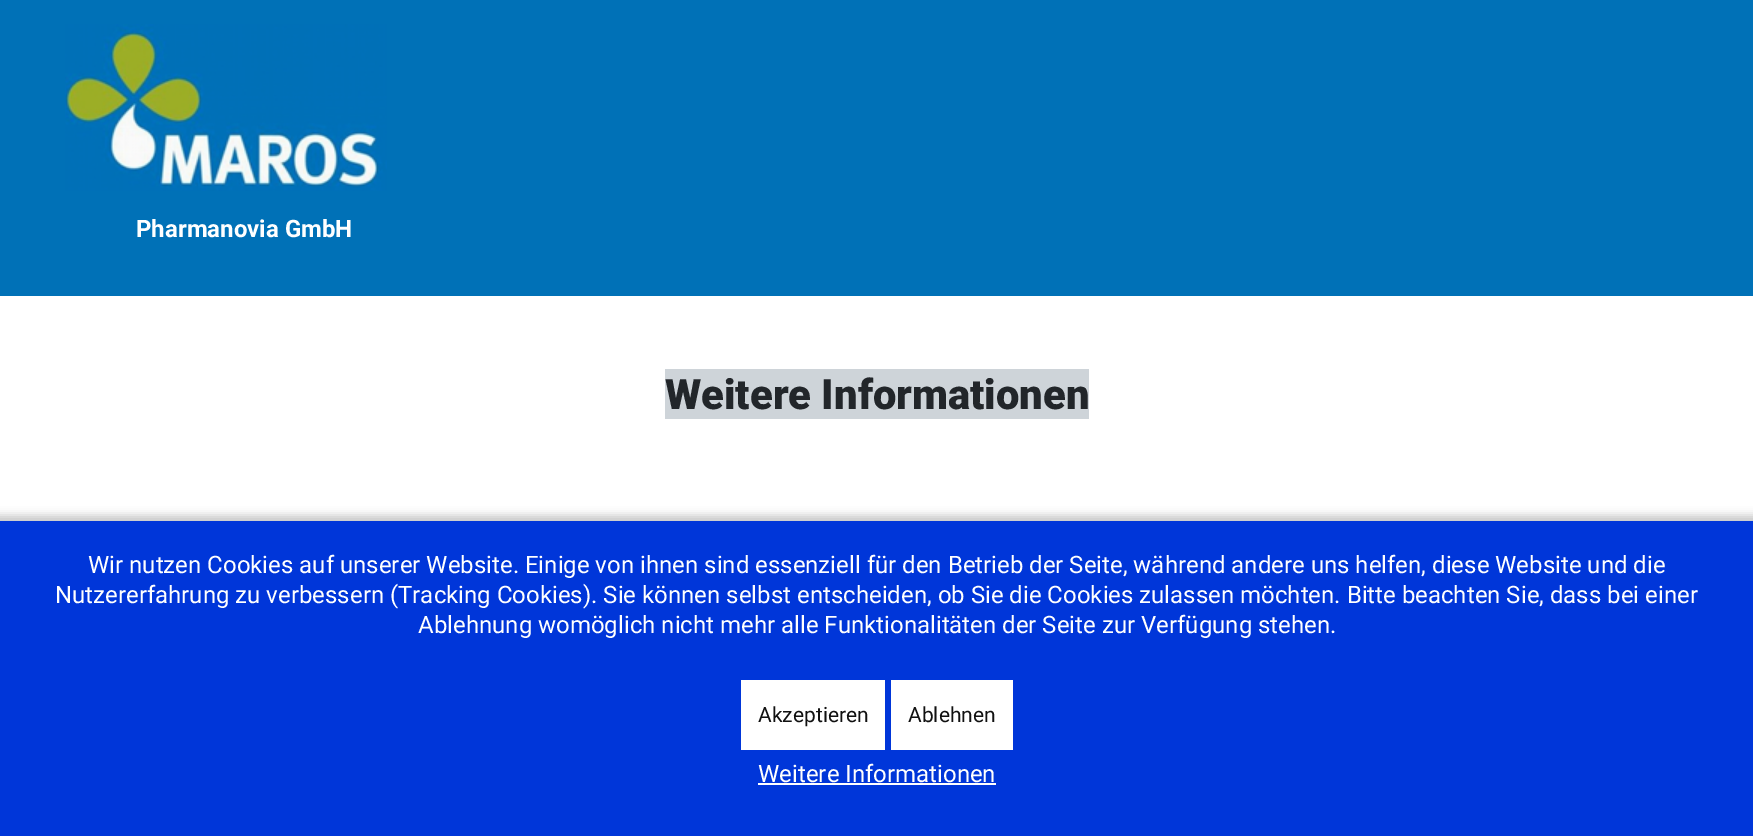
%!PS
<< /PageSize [1753 836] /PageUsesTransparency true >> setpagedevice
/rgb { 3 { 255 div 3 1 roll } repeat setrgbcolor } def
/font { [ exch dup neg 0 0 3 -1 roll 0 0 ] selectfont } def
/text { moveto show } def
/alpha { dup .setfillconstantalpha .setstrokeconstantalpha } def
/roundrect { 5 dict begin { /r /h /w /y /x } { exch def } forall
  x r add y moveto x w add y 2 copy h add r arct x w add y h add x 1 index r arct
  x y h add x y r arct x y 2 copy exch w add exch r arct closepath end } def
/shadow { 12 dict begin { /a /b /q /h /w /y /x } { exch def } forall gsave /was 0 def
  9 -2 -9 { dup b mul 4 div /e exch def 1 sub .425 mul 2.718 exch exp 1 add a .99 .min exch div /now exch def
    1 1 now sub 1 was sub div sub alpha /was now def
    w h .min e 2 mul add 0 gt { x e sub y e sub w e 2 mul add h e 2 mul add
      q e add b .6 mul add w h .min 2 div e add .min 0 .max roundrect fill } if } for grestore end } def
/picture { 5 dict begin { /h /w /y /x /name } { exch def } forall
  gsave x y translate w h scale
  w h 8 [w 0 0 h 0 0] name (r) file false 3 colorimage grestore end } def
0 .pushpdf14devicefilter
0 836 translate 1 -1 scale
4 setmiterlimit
255 255 255 rgb
0 0 1753 836 rectfill
0 113 183 rgb
0 0 1753 296 rectfill
(img_01.rgb) 65 24 322 167 picture
206 212 217 rgb
665 369 424 50 rectfill
0 0 0 rgb
-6 515 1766 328 0 4 0.21 shadow
0 54 217 rgb
0 521 1753 315 rectfill
255 255 255 rgb
741 680 144 70 rectfill
891 680 122 70 rectfill
758 783 238 2 rectfill
/Roboto-Bold 24 font
(Pharmanovia GmbH) 136 237 text
/Roboto-Black 41.75 font
34 38 42 rgb
(Weitere Informationen) 665 409 text
/Roboto-Regular 24 font
255 255 255 rgb
(Wir nutzen Cookies auf unserer Website. Einige von ihnen sind essenziell für den Betrieb der Seite, während andere uns helfen, diese Website und die) 88 573 text
(Nutzererfahrung zu verbessern \(Tracking Cookies\). Sie können selbst entscheiden, ob Sie die Cookies zulassen möchten. Bitte beachten Sie, dass bei einer) 55 603 text
(Ablehnung womöglich nicht mehr alle Funktionalitäten der Seite zur Verfügung stehen.) 418 633 text
/Roboto-Regular 21 font
17 17 17 rgb
(Akzeptieren) 758 722 text
(Ablehnen) 908 722 text
/Roboto-Regular 24 font
255 255 255 rgb
(Weitere Informationen) 758 782 text
.poppdf14devicefilter showpage
